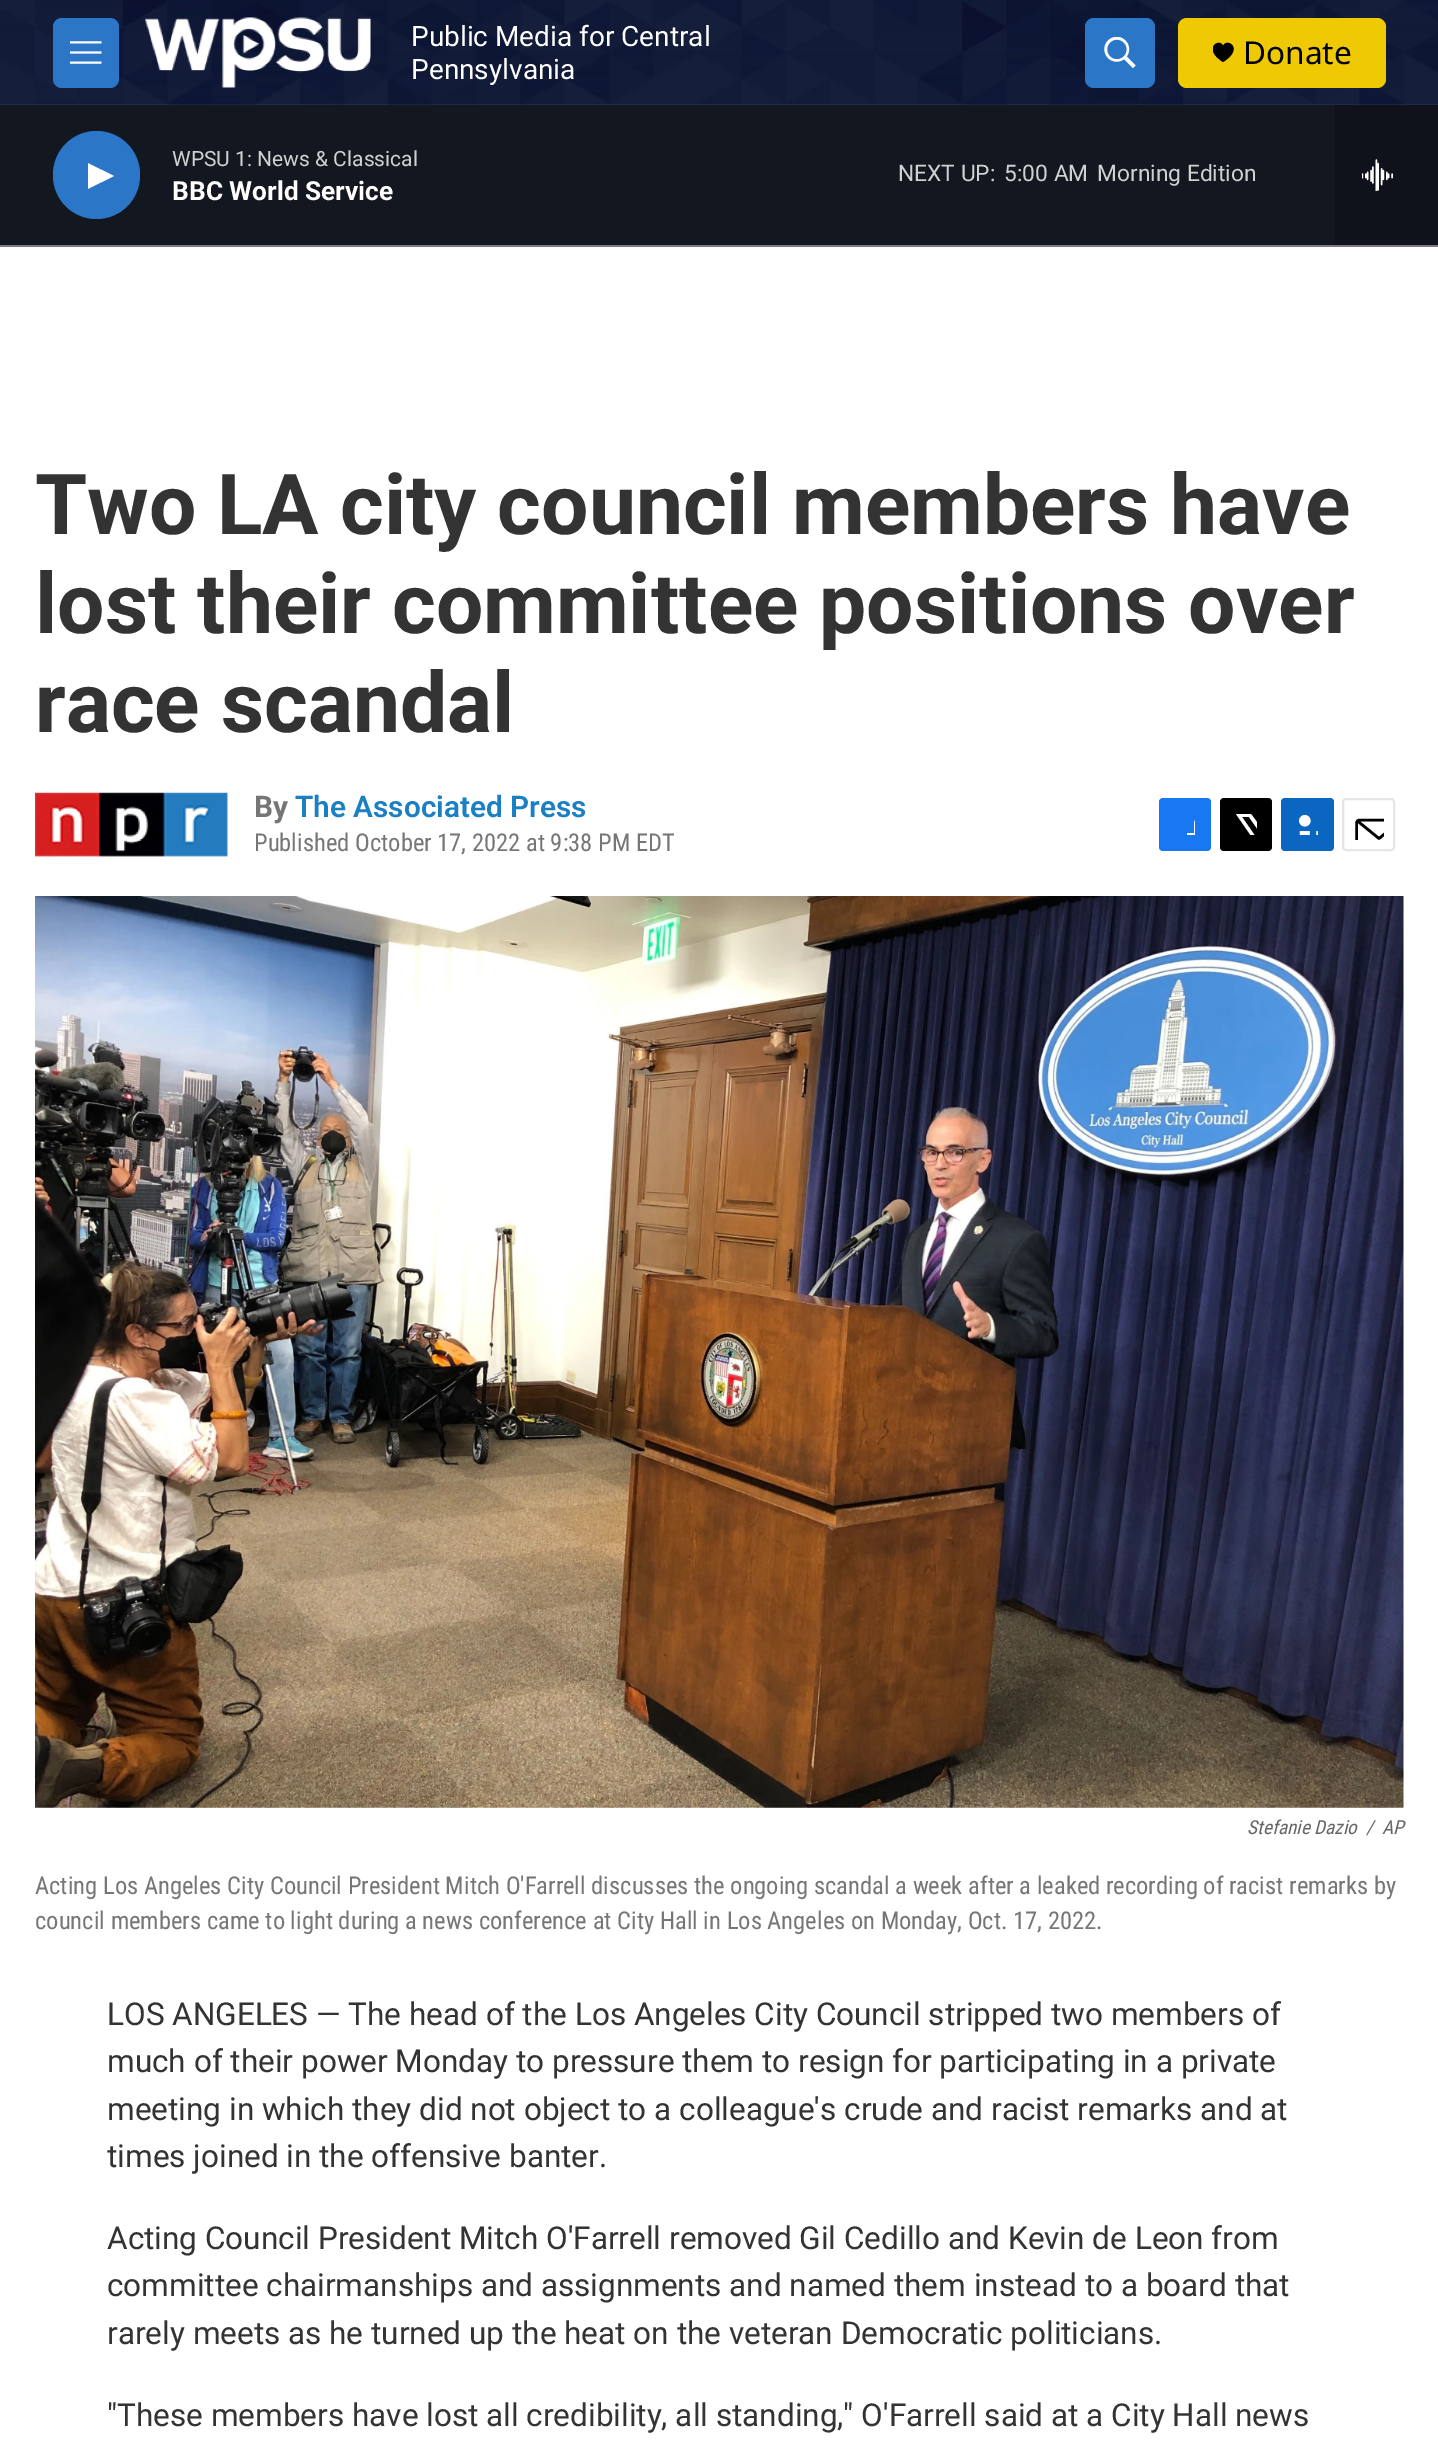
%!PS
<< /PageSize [1438 2464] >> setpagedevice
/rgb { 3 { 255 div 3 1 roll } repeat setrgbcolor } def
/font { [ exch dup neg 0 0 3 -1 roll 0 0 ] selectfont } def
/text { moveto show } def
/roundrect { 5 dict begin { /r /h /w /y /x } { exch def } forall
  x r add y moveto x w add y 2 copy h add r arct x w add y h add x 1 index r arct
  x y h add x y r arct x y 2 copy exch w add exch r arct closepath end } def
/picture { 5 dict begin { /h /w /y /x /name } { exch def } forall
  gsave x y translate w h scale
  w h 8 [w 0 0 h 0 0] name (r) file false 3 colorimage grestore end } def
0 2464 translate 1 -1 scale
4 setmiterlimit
255 255 255 rgb
0 0 1438 2464 rectfill
123 123 123 rgb
0 245 1438 2 rectfill
(img_01.rgb) 0 0 1438 105 picture
44 118 199 rgb
53 18 66 70 9 roundrect fill
(img_02.rgb) 70 41 32 23 picture
(img_03.rgb) 145 17 226 71 picture
1085 18 70 70 9 roundrect fill
(img_04.rgb) 1104 37 32 31 picture
239 201 3 rgb
1178 18 208 70 9 roundrect fill
gsave
1213 42 21 21 rectclip
0 0 0 rgb
1223 46 moveto -3 -9 -21.5 2.5 0 16 rcurveto 22 -13.5 3.5 -25 0 -16 rcurveto closepath fill
grestore
19 23 32 rgb
0 105 1335 140 rectfill
44 118 199 rgb
53 131 87 88 43.5 roundrect fill
gsave
88 159 26 34 rectclip
255 255 255 rgb
87.5 163 moveto 26.5 13 rlineto -26.5 13 rlineto closepath fill
grestore
15 18 26 rgb
1335 105 103 140 rectfill
(img_05.rgb) 1362 159 31 32 picture
(img_06.rgb) 35 792 193 66 picture
23 120 242 rgb
1159 798 52 53 4 roundrect fill
gsave
1174 814 21 21 rectclip
255 255 255 rgb
1203 851 moveto -9 0 rlineto 0 -9 rlineto -7 0 rlineto 0 -9 rlineto 7 0 rlineto 0 -10 rlineto 2 -8.5 10 -9 17 -8 rcurveto 0 8 rlineto -9.5 0 -8 1.5 -8 10 rcurveto 8 0 rlineto 0 4.5 rlineto -1 4.5 rlineto -7 0 rlineto closepath fill
grestore
0 0 0 rgb
1220 798 52 53 4 roundrect fill
gsave
1236 814 21 21 rectclip
255 255 255 rgb
1267 836 moveto 5 7.5 rlineto 0 2 0.5 4 -0.5 5.5 rcurveto -22.5 -32 rlineto -7 0 rlineto 23.5 34 rlineto -4 0 rlineto -3.5 -5 rlineto -4 5 rlineto -5 0 rlineto 7 -8 rlineto -20 -29 rlineto 15 0 rlineto 14 19 rlineto 7 -8.5 rlineto 0 5.5 rlineto closepath fill
grestore
10 102 193 rgb
1281 798 53 53 4 roundrect fill
(img_07.rgb) 1299 814 19 21 picture
230 230 230 rgb
2 setlinewidth
1343 799 51 51 3 roundrect stroke
gsave
1353 809 31 31 rectclip
0 0 0 rgb
2.6 setlinewidth
1 setlinecap
1 setlinejoin
1401.5 847 moveto 0 1.5 -1.5 3 -3 3 rcurveto -39 0 rlineto -1.5 0 -3 -1.5 -3 -3 rcurveto 0 -23.5 rlineto 0 -2 1.5 -3.5 3 -3.5 rcurveto 39 0 rlineto 1.5 0 3 1.5 3 3.5 rcurveto closepath 1400.5 821 moveto -21.5 17.5 rlineto -21.5 -17.5 rlineto stroke
grestore
(img_08.rgb) 35 896 1369 912 picture
/Roboto-Regular 28 font
255 255 255 rgb
(Public Media for Central) 411 46 text
(Pennsylvania) 411 79 text
/NotoSans-Regular 31.5 font
0 0 0 rgb
(Donate) 1243 64 text
/Roboto-Regular 21 font
208 209 210 rgb
(WPSU 1: News & Classical) 172 166 text
/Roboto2-Bold 26.25 font
255 255 255 rgb
(BBC World Service) 172 200 text
/Roboto-Regular 22.75 font
208 209 210 rgb
(NEXT UP:) 898 181 text
(5:00 AM) 1004 181 text
(Morning Edition) 1097 181 text
/Roboto-Bold 84 font
51 51 51 rgb
(Two LA city council members have) 35 534 text
(lost their committee positions over) 35 633 text
(race scandal) 35 732 text
/Roboto-Bold 29.75 font
118 118 118 rgb
(By) 254 817 text
/Roboto-SemiBold 29.75 font
26 127 195 rgb
(The Associated Press) 295 817 text
/RobotoCondensed-Regular 24.5 font
118 118 118 rgb
(Published October 17, 2022 at 9:38 PM EDT) 254 851 text
/RobotoCondensed-Italic 19.25 font
102 102 102 rgb
(Stefanie Dazio) 1247 1834 text
(/) 1366 1834 text
(AP) 1382 1834 text
/RobotoCondensed-Regular 24.5 font
118 118 118 rgb
(Acting Los Angeles City Council President Mitch O'Farrell discusses the ongoing scandal a week after a leaked recording of racist remarks by) 35 1894 text
(council members came to light during a news conference at City Hall in Los Angeles on Monday, Oct. 17, 2022.) 35 1929 text
/Roboto-Regular 31.5 font
51 51 51 rgb
(LOS ANGELES — The head of the Los Angeles City Council stripped two members of) 107 2025 text
(much of their power Monday to pressure them to resign for participating in a private) 107 2072 text
(meeting in which they did not object to a colleague's crude and racist remarks and at) 107 2120 text
(times joined in the offensive banter.) 107 2167 text
(Acting Council President Mitch O'Farrell removed Gil Cedillo and Kevin de Leon from) 107 2249 text
(committee chairmanships and assignments and named them instead to a board that) 107 2296 text
(rarely meets as he turned up the heat on the veteran Democratic politicians.) 107 2344 text
("These members have lost all credibility, all standing," O'Farrell said at a City Hall news) 107 2426 text
showpage
